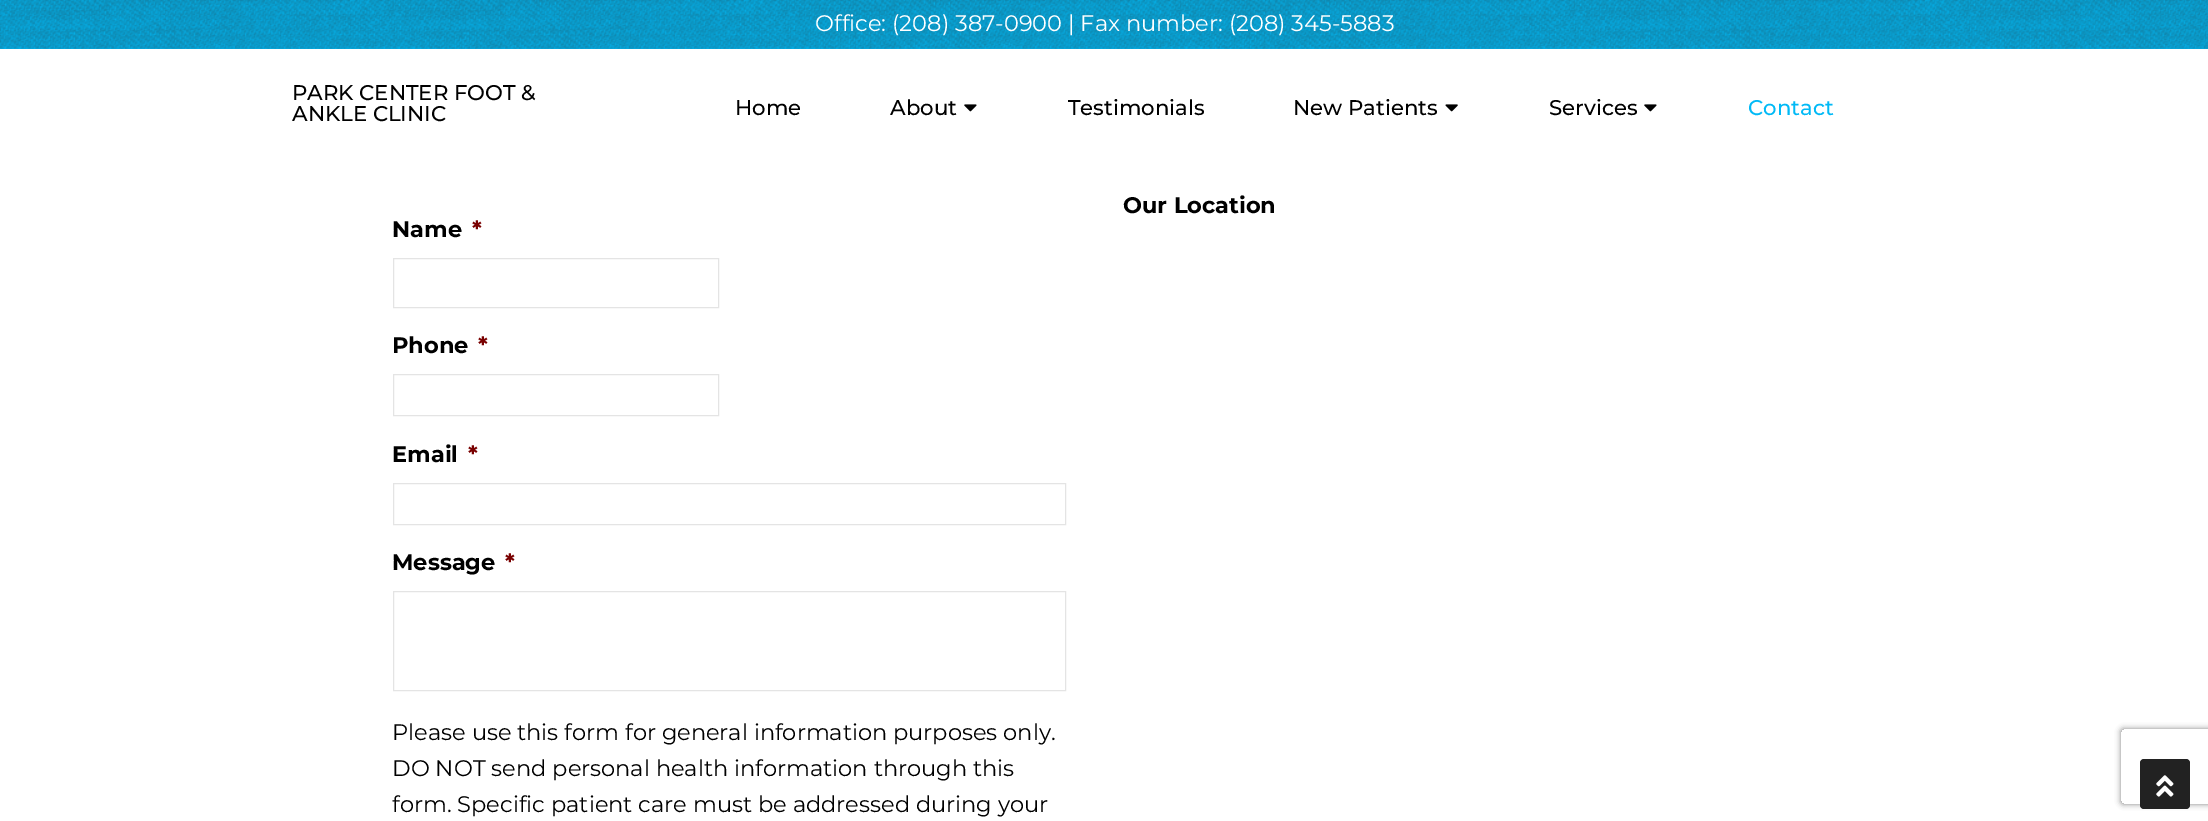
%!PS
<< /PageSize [2208 821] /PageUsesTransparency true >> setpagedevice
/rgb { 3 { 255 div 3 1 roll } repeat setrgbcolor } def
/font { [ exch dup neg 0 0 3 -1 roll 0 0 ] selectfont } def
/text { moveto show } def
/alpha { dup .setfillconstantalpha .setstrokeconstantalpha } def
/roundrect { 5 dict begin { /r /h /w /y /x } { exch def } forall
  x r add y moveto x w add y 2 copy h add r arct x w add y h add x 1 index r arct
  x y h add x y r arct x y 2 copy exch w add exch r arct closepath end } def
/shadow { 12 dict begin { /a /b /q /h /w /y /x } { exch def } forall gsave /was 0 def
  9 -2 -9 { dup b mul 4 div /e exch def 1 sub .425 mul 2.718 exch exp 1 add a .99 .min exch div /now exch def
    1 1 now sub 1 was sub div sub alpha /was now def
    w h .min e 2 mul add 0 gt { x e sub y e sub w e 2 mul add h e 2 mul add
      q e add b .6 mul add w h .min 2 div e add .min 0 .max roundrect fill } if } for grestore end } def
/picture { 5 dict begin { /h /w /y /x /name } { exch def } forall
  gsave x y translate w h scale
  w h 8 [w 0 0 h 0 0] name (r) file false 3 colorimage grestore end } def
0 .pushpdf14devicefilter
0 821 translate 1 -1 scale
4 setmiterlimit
255 255 255 rgb
0 0 2208 821 rectfill
0 185 246 rgb
0 0 2208 49 rectfill
(img_01.rgb) 0 0 2208 49 picture
(img_02.rgb) 964 104 13 8 picture
(img_03.rgb) 1445 104 13 8 picture
(img_02.rgb) 1644 104 13 8 picture
228 228 228 rgb
393.5 258.5 325 49 rectstroke
393.5 374.5 325 41 rectstroke
393.5 483.5 672 41 rectstroke
393.5 591.5 672 99 rectstroke
gsave
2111 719 moveto 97 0 rlineto 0 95 rlineto -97 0 rlineto closepath 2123.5 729 moveto 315 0 rlineto 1.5 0 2.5 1 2.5 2.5 rcurveto 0 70 rlineto 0 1.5 -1 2.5 -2.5 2.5 rcurveto -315 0 rlineto -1.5 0 -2.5 -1 -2.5 -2.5 rcurveto 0 -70 rlineto 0 -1.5 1 -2.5 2.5 -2.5 rcurveto closepath eoclip newpath
128 128 128 rgb
2121 729 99 75 2.5 3 1 shadow
grestore
34 34 34 rgb
2140 759 50 50 4 roundrect fill
(img_04.rgb) 2156 775 18 22 picture
/Montserrat-Regular 22.5 font
255 255 255 rgb
(Office: \(208\) 387-0900 | Fax number: \(208\) 345-5883) 815 31 text
/Montserrat-Medium 21.25 font
0 0 0 rgb
(PARK CENTER FOOT &) 292 100 text
(ANKLE CLINIC) 292 121 text
(Home) 735 115 text
(About) 890 115 text
(Testimonials) 1068 115 text
(New Patients) 1293 115 text
(Services) 1549 115 text
0 185 246 rgb
(Contact) 1748 115 text
/Montserrat-Bold 22.5 font
0 0 0 rgb
(Our Location) 1123 213 text
(Name) 392 237 text
121 0 0 rgb
(*) 472 237 text
0 0 0 rgb
(Phone) 392 353 text
121 0 0 rgb
(*) 478 353 text
0 0 0 rgb
(Email) 392 462 text
121 0 0 rgb
(*) 468 462 text
0 0 0 rgb
(Message) 392 570 text
121 0 0 rgb
(*) 505 570 text
/Montserrat-Regular 22.5 font
0 0 0 rgb
(Please use this form for general information purposes only.) 392 740 text
(DO NOT send personal health information through this) 392 776 text
(form. Specific patient care must be addressed during your) 392 812 text
.poppdf14devicefilter showpage
